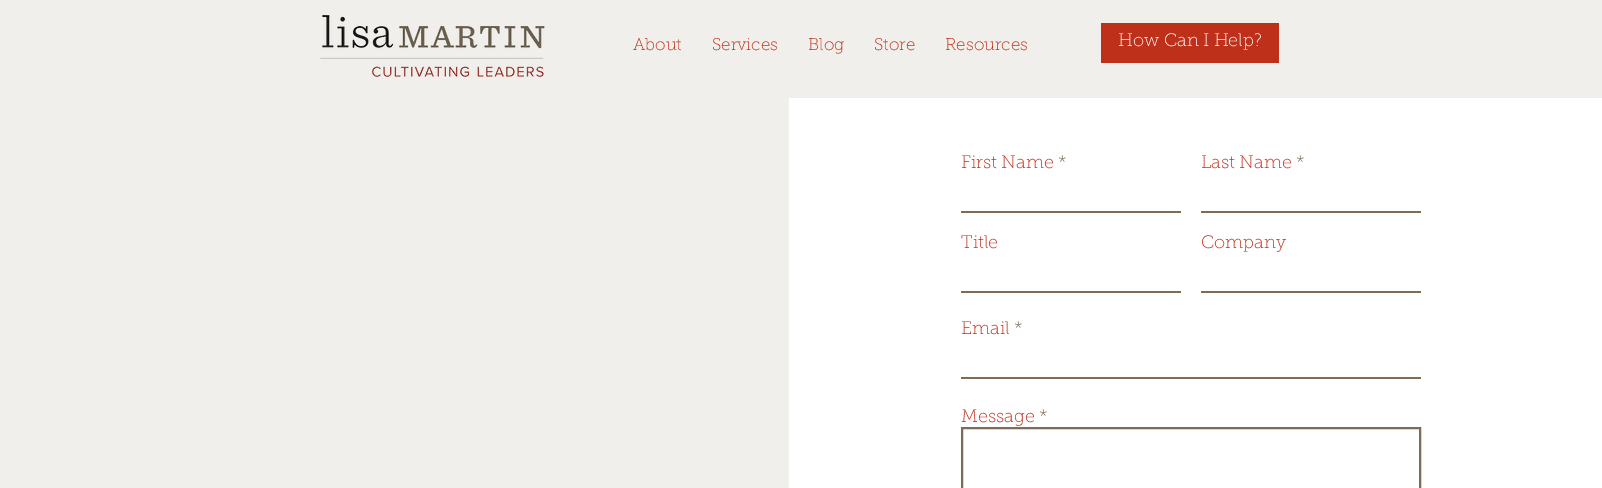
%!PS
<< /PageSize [1602 488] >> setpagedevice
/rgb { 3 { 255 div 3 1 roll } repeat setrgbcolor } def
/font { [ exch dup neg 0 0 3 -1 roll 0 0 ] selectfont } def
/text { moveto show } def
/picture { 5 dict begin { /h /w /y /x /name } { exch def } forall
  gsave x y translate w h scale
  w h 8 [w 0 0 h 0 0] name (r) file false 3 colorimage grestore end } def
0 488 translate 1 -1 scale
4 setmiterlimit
255 255 255 rgb
0 0 1602 488 rectfill
240 239 235 rgb
0 0 1602 98 rectfill
(img_01.rgb) 320 15 225 62 picture
190 48 26 rgb
1101 23 178 40 rectfill
240 239 235 rgb
0 98 789 390 rectfill
127 108 87 rgb
961 211 220 2 rectfill
1201 211 220 2 rectfill
961 291 220 2 rectfill
1201 291 220 2 rectfill
961 377 460 2 rectfill
2 setlinewidth
962 428 458 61 rectstroke
/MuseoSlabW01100-Thin 17 font
190 48 26 rgb
(About) 633 50 text
(Services) 712 50 text
(Blog) 808 50 text
(Store) 874 50 text
(Resources) 945 50 text
/MuseoSlabW01100-Thin 18 font
255 255 255 rgb
(How Can I Help?) 1118 46 text
190 48 26 rgb
(First Name) 961 168 text
127 108 87 rgb
(*) 1058 168 text
190 48 26 rgb
(Last Name) 1201 168 text
127 108 87 rgb
(*) 1296 168 text
190 48 26 rgb
(Title) 961 248 text
(Company) 1201 248 text
(Email) 961 334 text
127 108 87 rgb
(*) 1014 334 text
190 48 26 rgb
(Message) 961 422 text
127 108 87 rgb
(*) 1039 422 text
showpage
